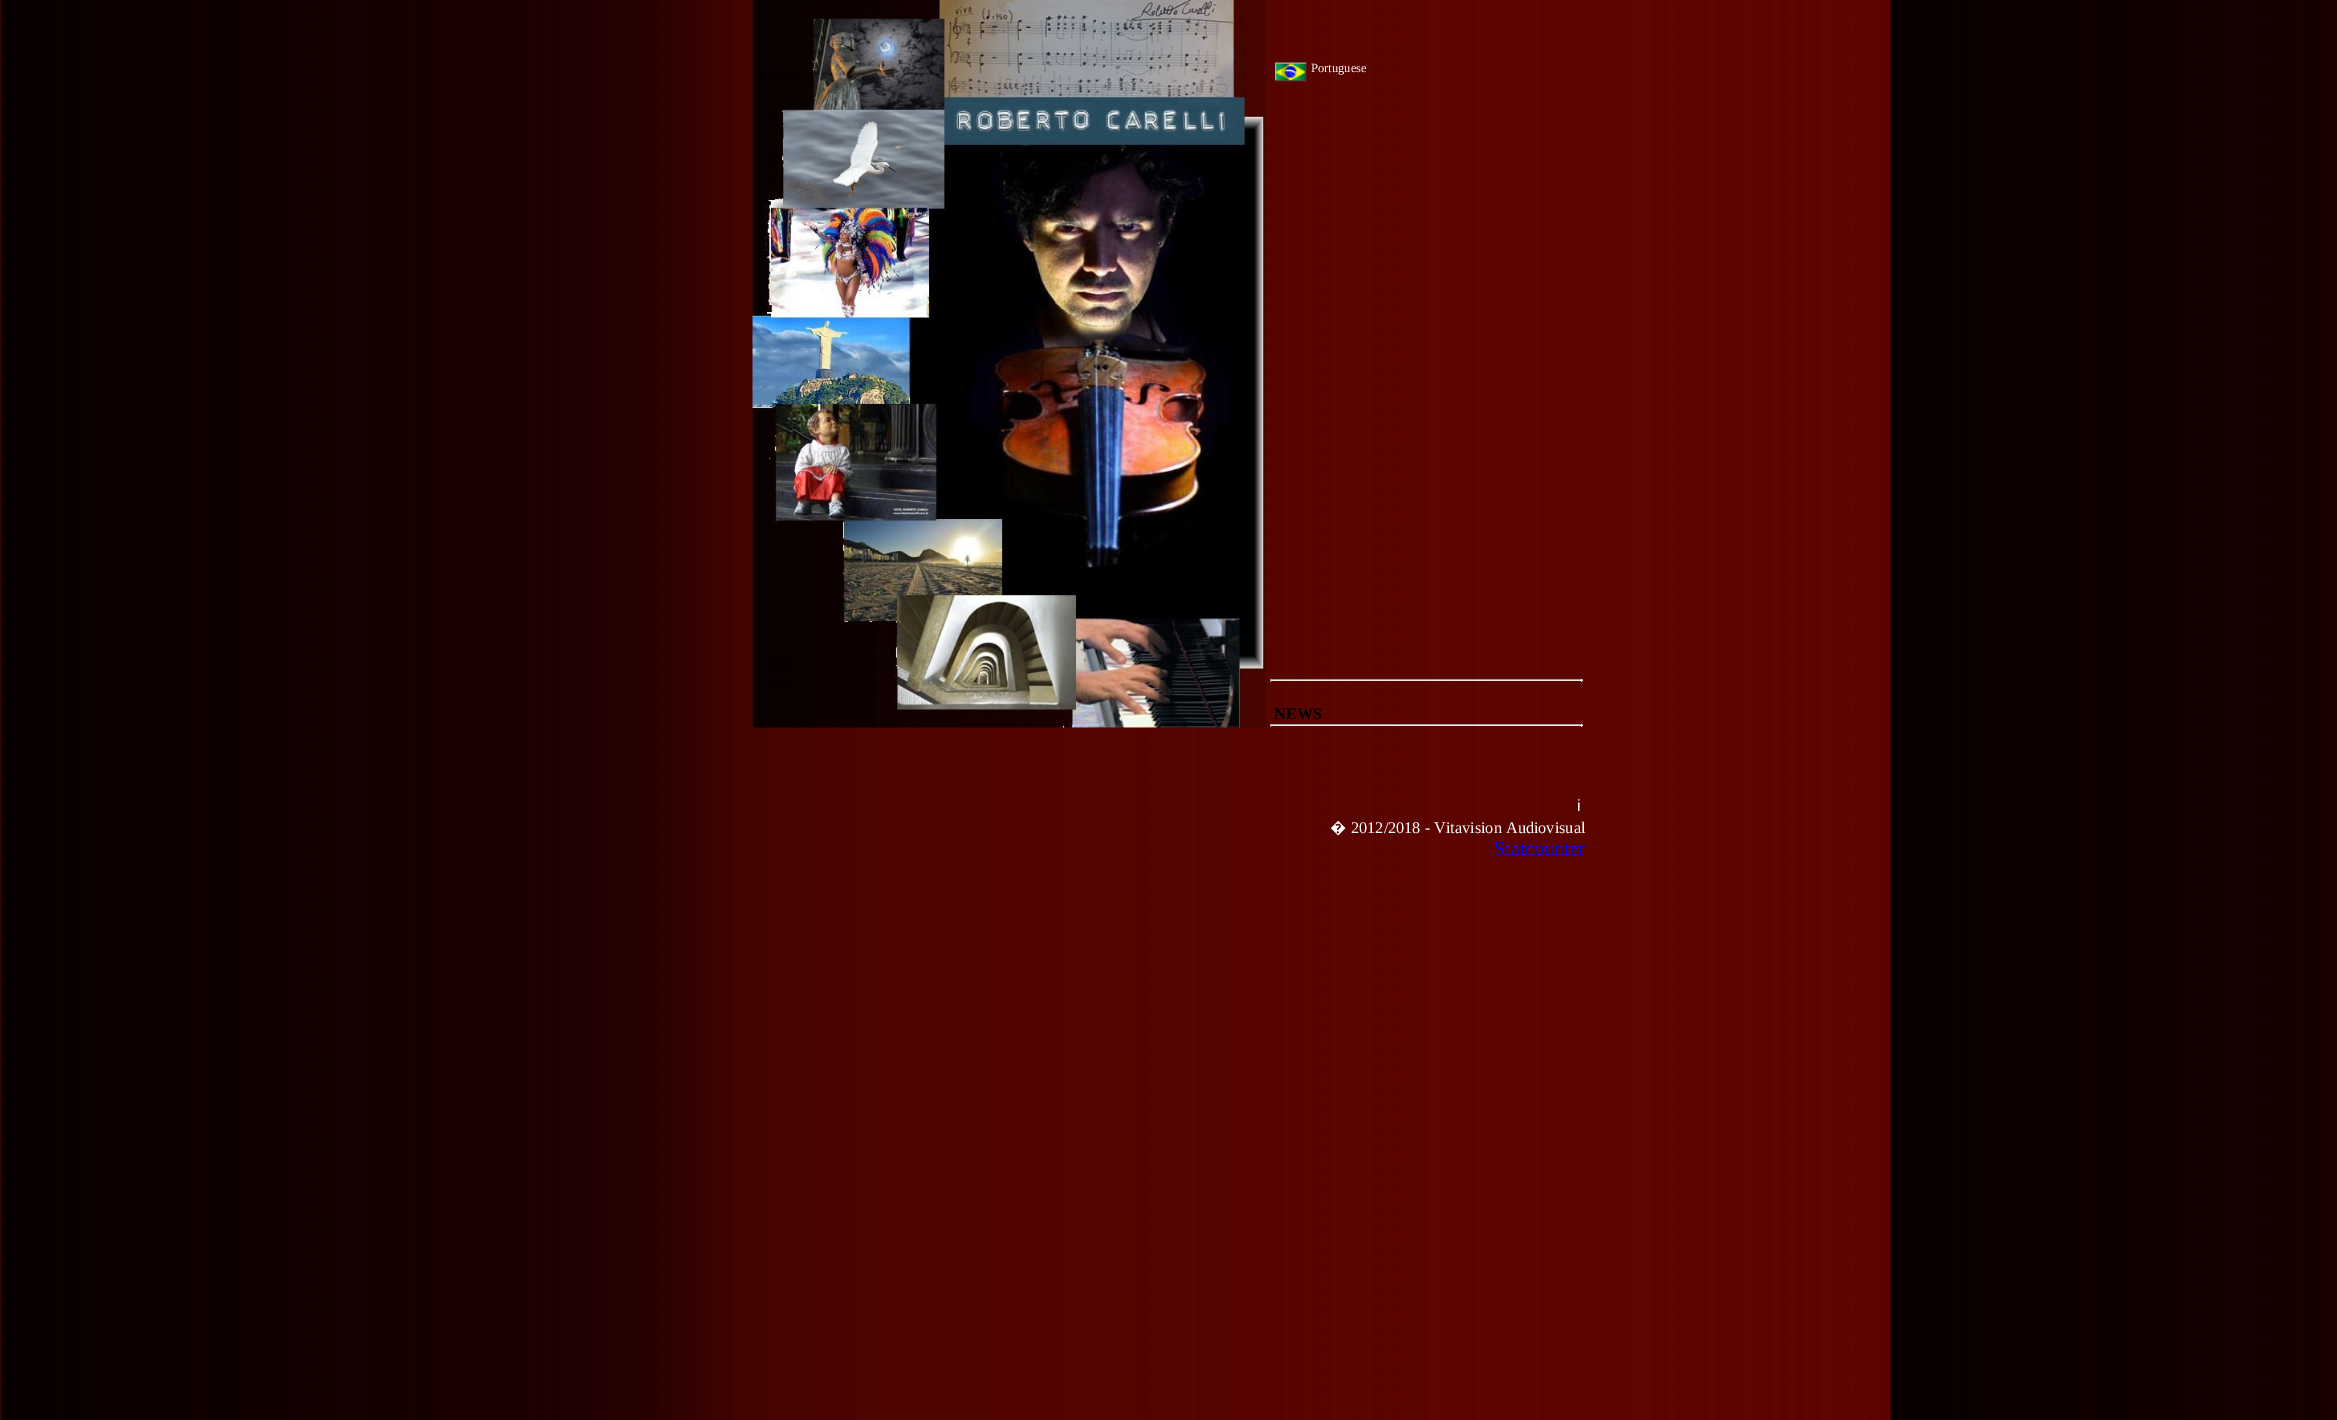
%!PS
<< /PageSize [2337 1420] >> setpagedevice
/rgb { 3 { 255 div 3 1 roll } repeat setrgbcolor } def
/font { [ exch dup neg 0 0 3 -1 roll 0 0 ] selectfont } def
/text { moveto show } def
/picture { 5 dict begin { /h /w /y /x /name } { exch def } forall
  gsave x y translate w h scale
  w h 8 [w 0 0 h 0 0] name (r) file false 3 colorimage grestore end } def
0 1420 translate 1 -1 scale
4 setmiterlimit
255 255 255 rgb
0 0 2337 1420 rectfill
(img_01.rgb) 0 0 2337 1420 picture
(img_02.rgb) 752 0 515 728 picture
(img_03.rgb) 1275 62 32 20 picture
159 159 159 rgb
1270 679 313 1 rectfill
238 238 238 rgb
1581 679 1 3 rectfill
1270 680 313 1 rectfill
159 159 159 rgb
1270 679 1 3 rectfill
1270 724 313 1 rectfill
238 238 238 rgb
1581 724 1 3 rectfill
1270 725 313 1 rectfill
159 159 159 rgb
1270 724 1 3 rectfill
/LiberationSerif-Regular 12.5 font
255 255 255 rgb
(Portuguese) 1311 72 text
/LiberationSerif-Bold 16.25 font
0 0 0 rgb
(NEWS) 1274 719 text
/LiberationSans-Regular 16.25 font
255 255 255 rgb
(i) 1577 811 text
/NotoSans-Regular 16.25 font
(�) 1330 833 text
/LiberationSerif-Regular 16.25 font
(2012/2018 - Vitavision Audiovisual) 1351 833 text
/LiberationSerif-Regular 20 font
0 0 255 rgb
(Statcounter) 1494 855 text
showpage
